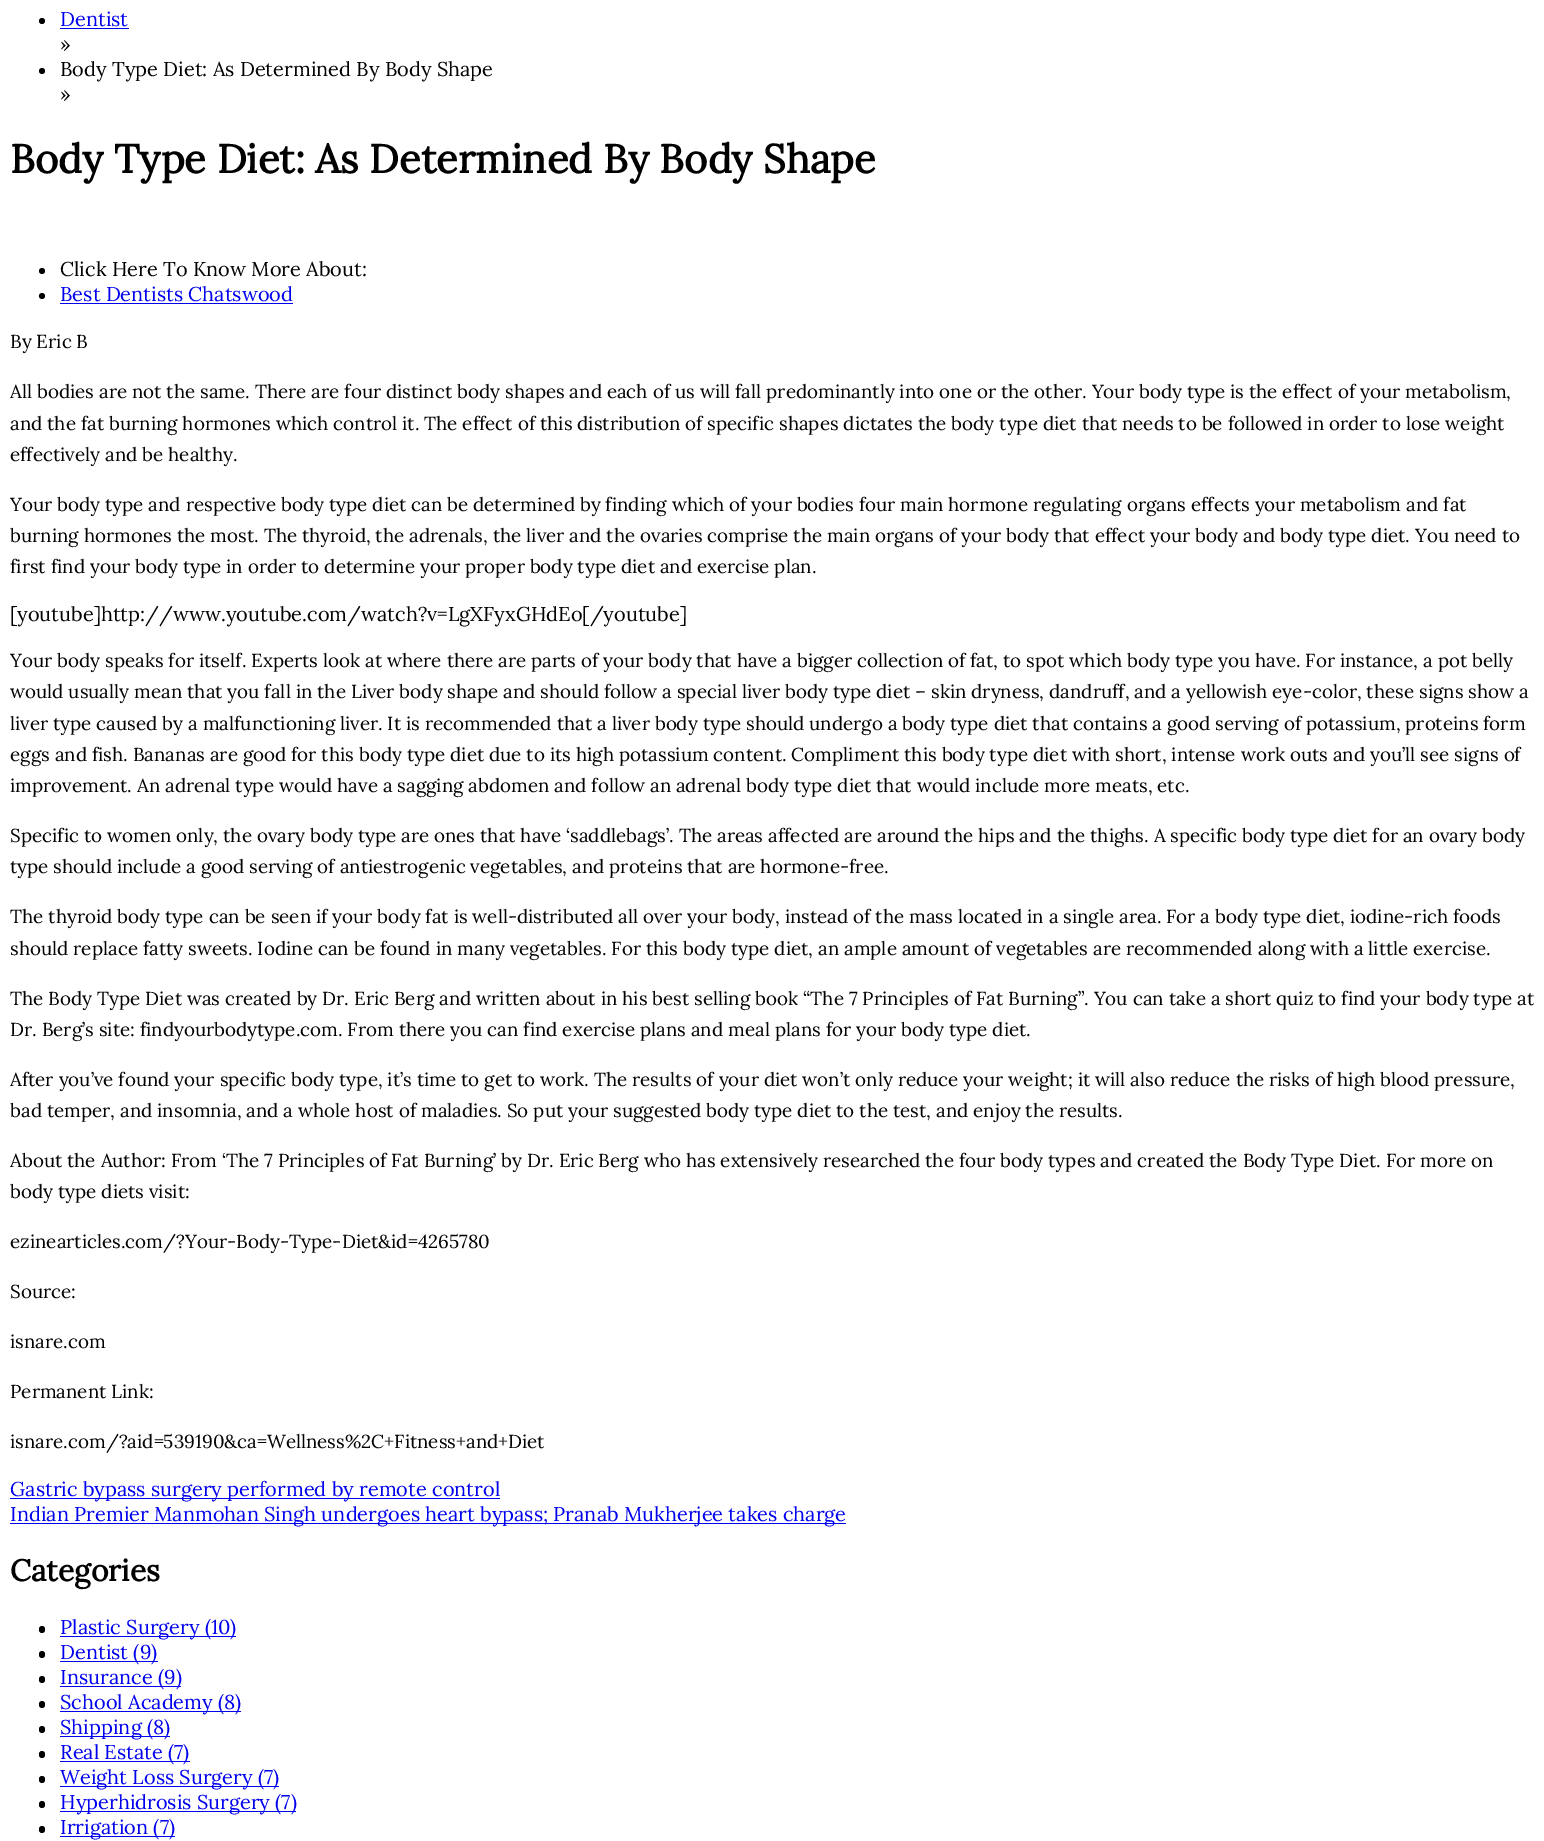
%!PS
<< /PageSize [1544 1841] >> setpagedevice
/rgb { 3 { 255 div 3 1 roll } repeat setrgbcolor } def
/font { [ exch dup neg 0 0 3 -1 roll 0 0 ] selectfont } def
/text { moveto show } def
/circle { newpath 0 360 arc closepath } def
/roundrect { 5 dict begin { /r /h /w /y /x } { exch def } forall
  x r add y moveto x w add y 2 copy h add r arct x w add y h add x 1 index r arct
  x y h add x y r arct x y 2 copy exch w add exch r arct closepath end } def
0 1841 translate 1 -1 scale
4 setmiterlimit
255 255 255 rgb
0 0 1544 1841 rectfill
0 0 0 rgb
42 21 3 circle fill
0 0 238 rgb
60 28 69 1 rectfill
0 0 0 rgb
42 71 3 circle fill
42 271 3 circle fill
42 296 3 circle fill
0 0 238 rgb
60 303 233 1 rectfill
10 1498 490 1 rectfill
10 1523 836 1 rectfill
0 0 0 rgb
39 1626 6 7 3 roundrect fill
0 0 238 rgb
60 1636 176 1 rectfill
0 0 0 rgb
39 1651 6 7 3 roundrect fill
0 0 238 rgb
60 1661 98 1 rectfill
0 0 0 rgb
39 1676 6 7 3 roundrect fill
0 0 238 rgb
60 1686 121 1 rectfill
0 0 0 rgb
39 1701 6 7 3 roundrect fill
0 0 238 rgb
60 1711 181 1 rectfill
0 0 0 rgb
39 1726 6 7 3 roundrect fill
0 0 238 rgb
60 1736 110 1 rectfill
0 0 0 rgb
39 1751 6 7 3 roundrect fill
0 0 238 rgb
60 1761 130 1 rectfill
0 0 0 rgb
39 1776 6 7 3 roundrect fill
0 0 238 rgb
60 1786 219 1 rectfill
0 0 0 rgb
39 1801 6 7 3 roundrect fill
0 0 238 rgb
60 1811 236 1 rectfill
0 0 0 rgb
39 1826 6 7 3 roundrect fill
0 0 238 rgb
60 1836 115 1 rectfill
/Lora-Regular 20 font
(Dentist) 60 26 text
0 0 0 rgb
(») 60 51 text
(Body Type Diet: As Determined By Body Shape) 60 76 text
(») 60 101 text
/Lora-Bold 40 font
(Body Type Diet: As Determined By Body Shape) 10 173 text
/Lora-Regular 20 font
(Click Here To Know More About:) 60 276 text
0 0 238 rgb
(Best Dentists Chatswood) 60 301 text
/Lora-Regular 18.75 font
0 0 0 rgb
(By Eric B) 10 348 text
(All bodies are not the same. There are four distinct body shapes and each of us will fall predominantly into one or the other. Your body type is the effect of your metabolism,) 10 398 text
(and the fat burning hormones which control it. The effect of this distribution of specific shapes dictates the body type diet that needs to be followed in order to lose weight) 10 430 text
(effectively and be healthy.) 10 461 text
(Your body type and respective body type diet can be determined by finding which of your bodies four main hormone regulating organs effects your metabolism and fat) 10 511 text
(burning hormones the most. The thyroid, the adrenals, the liver and the ovaries comprise the main organs of your body that effect your body and body type diet. You need to) 10 542 text
(first find your body type in order to determine your proper body type diet and exercise plan.) 10 573 text
/Lora-Regular 20 font
([youtube]http://www.youtube.com/watch?v=LgXFyxGHdEo[/youtube]) 10 621 text
/Lora-Regular 18.75 font
(Your body speaks for itself. Experts look at where there are parts of your body that have a bigger collection of fat, to spot which body type you have. For instance, a pot belly) 10 667 text
(would usually mean that you fall in the Liver body shape and should follow a special liver body type diet – skin dryness, dandruff, and a yellowish eye-color, these signs show a) 10 698 text
(liver type caused by a malfunctioning liver. It is recommended that a liver body type should undergo a body type diet that contains a good serving of potassium, proteins form) 10 730 text
(eggs and fish. Bananas are good for this body type diet due to its high potassium content. Compliment this body type diet with short, intense work outs and you’ll see signs of) 10 761 text
(improvement. An adrenal type would have a sagging abdomen and follow an adrenal body type diet that would include more meats, etc.) 10 792 text
(Specific to women only, the ovary body type are ones that have ‘saddlebags’. The areas affected are around the hips and the thighs. A specific body type diet for an ovary body) 10 842 text
(type should include a good serving of antiestrogenic vegetables, and proteins that are hormone-free.) 10 873 text
(The thyroid body type can be seen if your body fat is well-distributed all over your body, instead of the mass located in a single area. For a body type diet, iodine-rich foods) 10 923 text
(should replace fatty sweets. Iodine can be found in many vegetables. For this body type diet, an ample amount of vegetables are recommended along with a little exercise.) 10 955 text
(The Body Type Diet was created by Dr. Eric Berg and written about in his best selling book “The 7 Principles of Fat Burning”. You can take a short quiz to find your body type at) 10 1005 text
(Dr. Berg’s site: findyourbodytype.com. From there you can find exercise plans and meal plans for your body type diet.) 10 1036 text
(After you’ve found your specific body type, it’s time to get to work. The results of your diet won’t only reduce your weight; it will also reduce the risks of high blood pressure,) 10 1086 text
(bad temper, and insomnia, and a whole host of maladies. So put your suggested body type diet to the test, and enjoy the results.) 10 1117 text
(About the Author: From ‘The 7 Principles of Fat Burning’ by Dr. Eric Berg who has extensively researched the four body types and created the Body Type Diet. For more on) 10 1167 text
(body type diets visit:) 10 1198 text
(ezinearticles.com/?Your-Body-Type-Diet&id=4265780) 10 1248 text
(Source:) 10 1298 text
(isnare.com) 10 1348 text
(Permanent Link:) 10 1398 text
(isnare.com/?aid=539190&ca=Wellness%2C+Fitness+and+Diet) 10 1448 text
/Lora-Regular 20 font
0 0 238 rgb
(Gastric bypass surgery performed by remote control) 10 1496 text
(Indian Premier Manmohan Singh undergoes heart bypass; Pranab Mukherjee takes charge) 10 1521 text
/Lora-Bold 30 font
0 0 0 rgb
(Categories) 10 1581 text
/Lora-Regular 20 font
0 0 238 rgb
(Plastic Surgery \(10\)) 60 1634 text
(Dentist \(9\)) 60 1659 text
(Insurance \(9\)) 60 1684 text
(School Academy \(8\)) 60 1709 text
(Shipping \(8\)) 60 1734 text
(Real Estate \(7\)) 60 1759 text
(Weight Loss Surgery \(7\)) 60 1784 text
(Hyperhidrosis Surgery \(7\)) 60 1809 text
(Irrigation \(7\)) 60 1834 text
showpage
